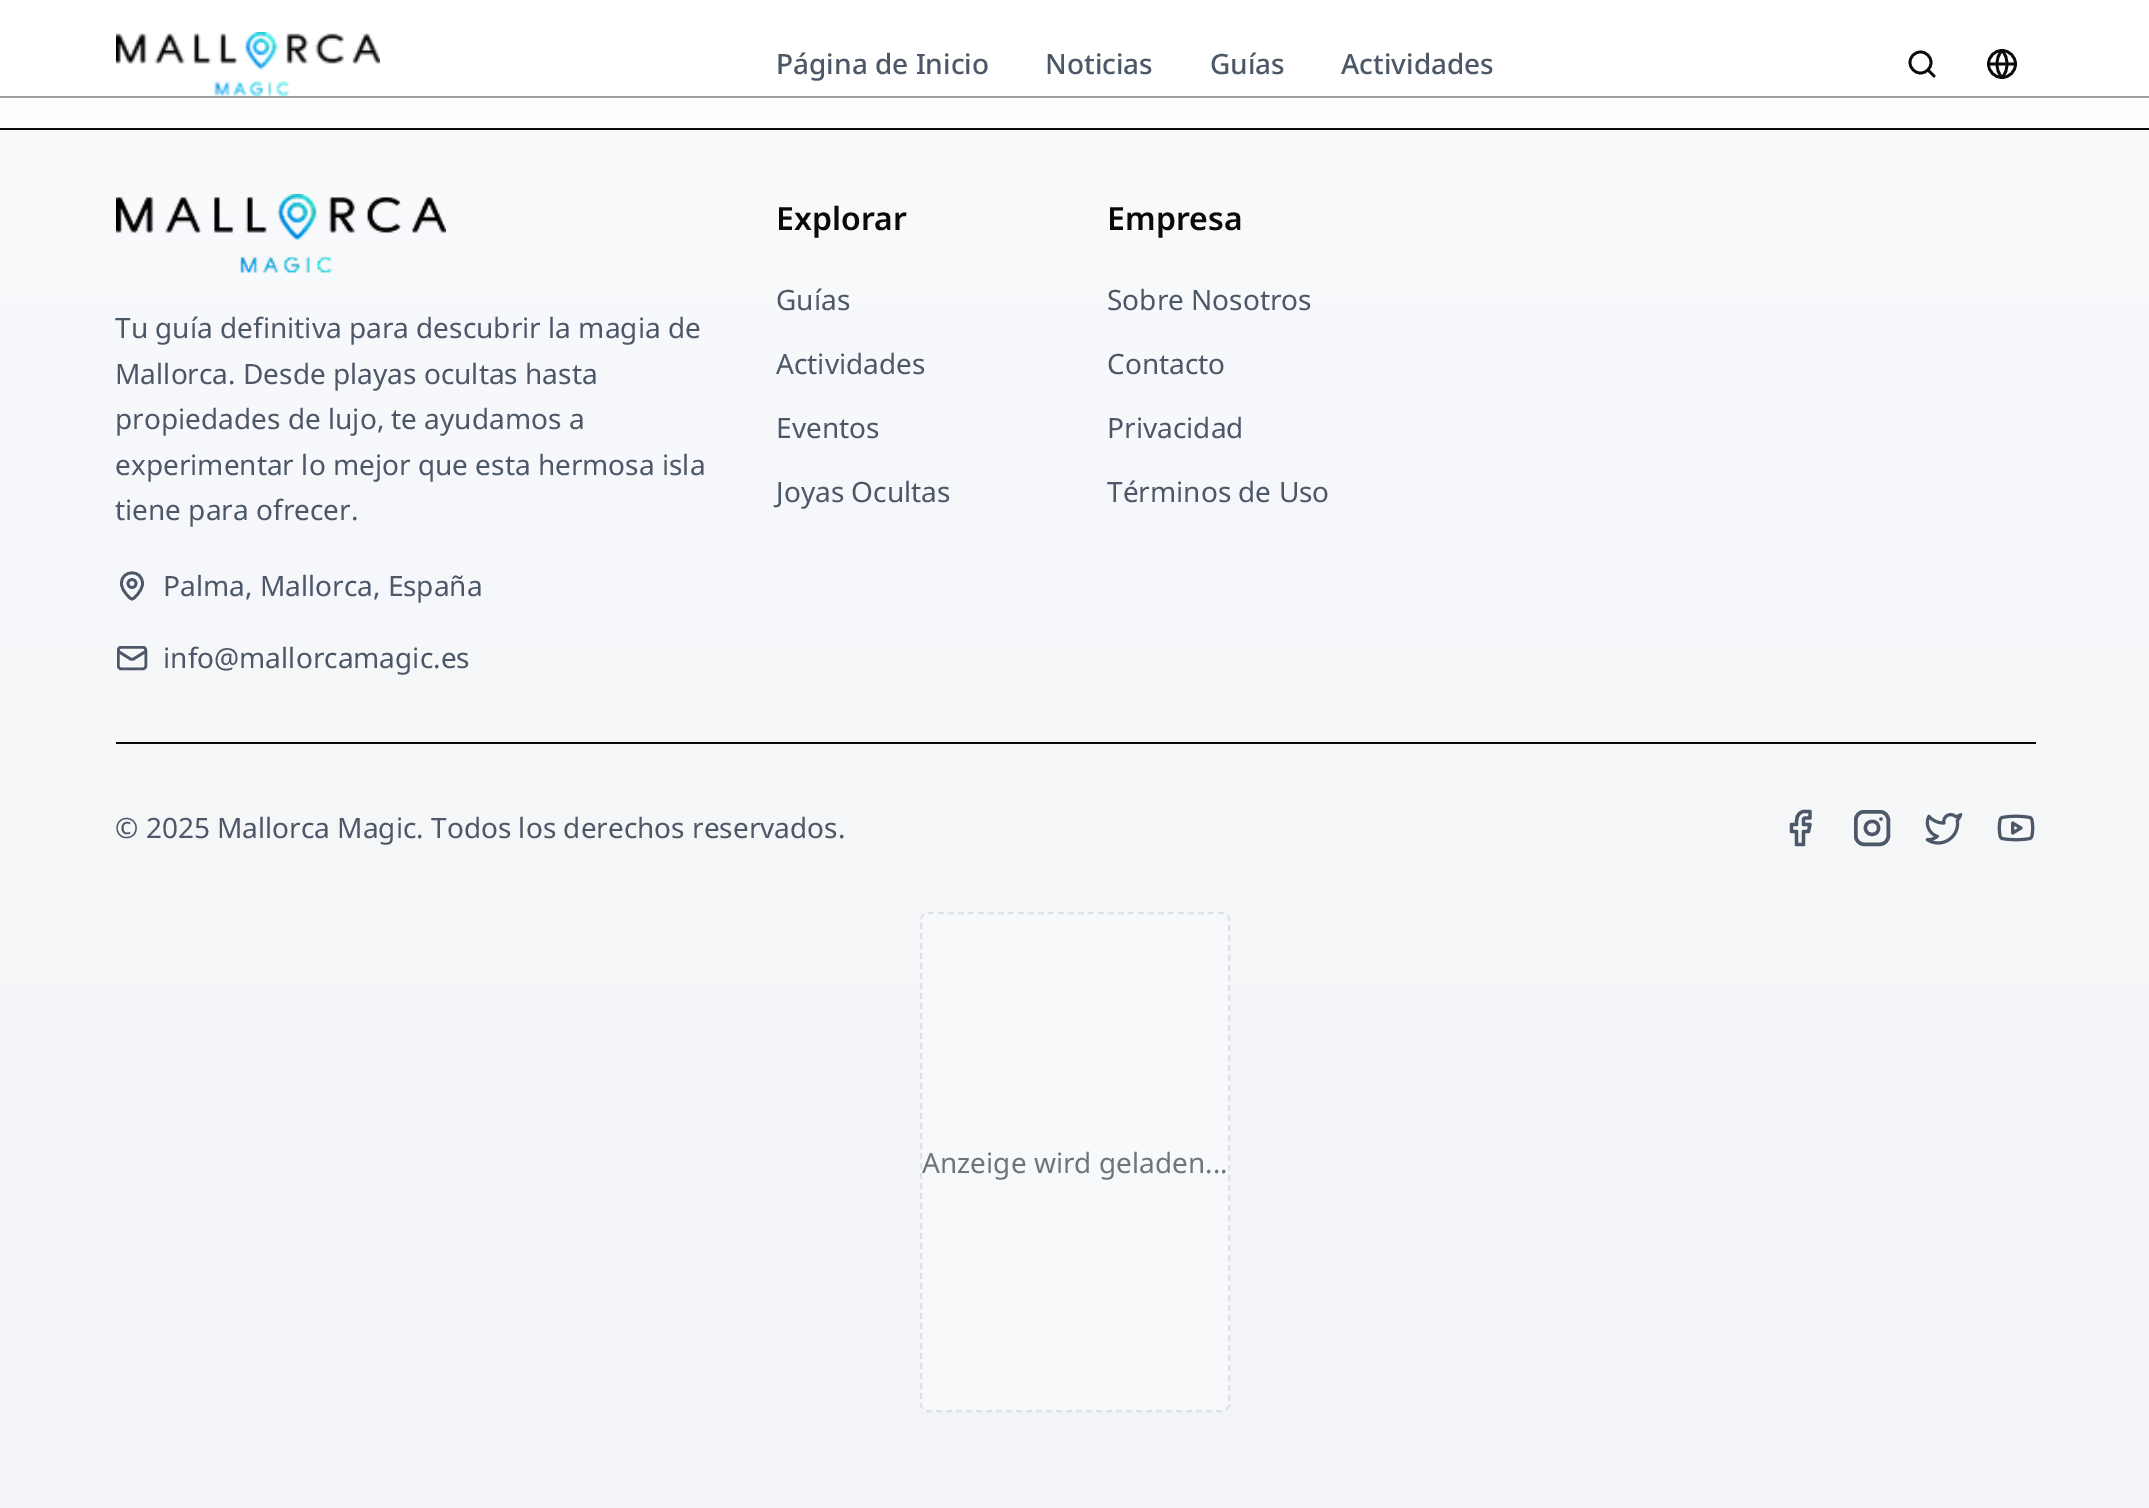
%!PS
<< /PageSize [2149 1508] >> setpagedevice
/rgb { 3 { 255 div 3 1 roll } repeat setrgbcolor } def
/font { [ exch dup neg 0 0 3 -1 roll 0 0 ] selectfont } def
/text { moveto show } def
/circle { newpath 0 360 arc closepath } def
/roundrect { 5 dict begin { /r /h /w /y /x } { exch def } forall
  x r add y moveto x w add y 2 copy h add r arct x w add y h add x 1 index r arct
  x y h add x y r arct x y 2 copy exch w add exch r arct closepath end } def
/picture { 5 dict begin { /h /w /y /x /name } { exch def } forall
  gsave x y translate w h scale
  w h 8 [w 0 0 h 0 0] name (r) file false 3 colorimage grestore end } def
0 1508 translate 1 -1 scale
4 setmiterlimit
255 255 255 rgb
0 0 2149 1508 rectfill
10 10 10 rgb
0 128 2149 2 rectfill
(img_01.rgb) 116 32 264 64 picture
2.7 setlinewidth
1 setlinecap
1 setlinejoin
1934 76 moveto -6 -6 rlineto stroke
0 setlinecap
0 setlinejoin
1920.5 62.5 10.5 circle stroke
2002 64 13.5 circle stroke
1 setlinecap
1 setlinejoin
2002 50.5 moveto -7 7.5 -7 19.5 0 27 rcurveto 7 -7.5 7 -19.5 0 -27 rcurveto 1988.5 64 moveto 27 0 rlineto stroke
gsave 0 130 moveto 2149 0 rlineto 0 1378 rlineto -2149 0 rlineto closepath clip newpath
<< /ShadingType 2 /ColorSpace /DeviceRGB /Coords [1075 98 1075 1508] /Extend [true true] /Function << /FunctionType 2 /Domain [0 1] /C0 [0.973 0.98 0.988] /C1 [0.953 0.957 0.969] /N 1 >> >> shfill grestore
gsave 0 98 moveto 2149 0 rlineto 0 30 rlineto -2149 0 rlineto closepath clip newpath
<< /ShadingType 2 /ColorSpace /DeviceRGB /Coords [1075 98 1075 1508] /Extend [true true] /Function << /FunctionType 2 /Domain [0 1] /C0 [0.988 0.992 0.996] /C1 [0.98 0.984 0.988] /N 1 >> >> shfill grestore
157 157 157 rgb
0 96 2149 2 rectfill
(img_02.rgb) 116 194 330 79 picture
76 87 103 rgb
142.5 583.5 moveto 0 4 -2.5 8 -5.5 11.5 rcurveto -5 5.5 -5 5.5 -10 0 rcurveto -3 -3.5 -5.5 -7 -5.5 -11.5 rcurveto -0.5 -14 21 -14.5 21 0 rcurveto stroke
0 setlinecap
0 setlinejoin
132 583.5 4 circle stroke
1 setlinecap
1 setlinejoin
145.5 651.5 moveto -12 7.5 rlineto -1 0.5 -2 0.5 -3 0 rcurveto -12 -7.5 rlineto stroke
2.5 setlinewidth
0 setlinecap
0 setlinejoin
118.25 647.25 27.5 21.5 2.75 roundrect stroke
10 10 10 rgb
116 742 1920 2 rectfill
76 87 103 rgb
3.3 setlinewidth
1 setlinecap
1 setlinejoin
1810 811.5 moveto -6.5 0 rlineto -7 1.5 -7 7.5 -7 13 rcurveto -5 0 rlineto 0 7 rlineto 5 0 rlineto 0 13 rlineto 7 0 rlineto 0 -13 rlineto 5 0 rlineto 1.5 -7 rlineto -6.5 0 rlineto 0 -7.5 -1 -6.5 6.5 -6.5 rcurveto closepath stroke
3.5 setlinewidth
0 setlinecap
0 setlinejoin
1855.75 811.75 32.5 32.5 8.25 roundrect stroke
3.3 setlinewidth
1 setlinecap
1 setlinejoin
1878.5 827 moveto 1.5 8.5 -11.5 10.5 -13 2 rcurveto -1.5 -8.5 12 -11 13 -2 rcurveto closepath 1881 819 moveto 0 0 rlineto stroke
(img_03.rgb) 1925 813 38 32 picture
(img_04.rgb) 1997 814 38 28 picture
248 249 250 rgb
920 912 310 500 8 roundrect fill
222 226 230 rgb
2 setlinewidth
0 setlinecap
0 setlinejoin
[6 4] 0 setdash
928 913 moveto 294 0 rlineto 4 0 7 3 7 7 rcurveto 0 484 rlineto 0 4 -3 7 -7 7 rcurveto -294 0 rlineto -4 0 -7 -3 -7 -7 rcurveto 0 -484 rlineto 0 -4 3 -7 7 -7 rcurveto closepath stroke
/NotoSans-Medium 28 font
76 87 103 rgb
(Página de Inicio) 776 74 text
(Noticias) 1045 74 text
(Guías) 1210 74 text
(Actividades) 1341 74 text
/NotoSans-Regular 28 font
(Tu guía definitiva para descubrir la magia de) 115 338 text
(Mallorca. Desde playas ocultas hasta) 115 384 text
(propiedades de lujo, te ayudamos a) 115 429 text
(experimentar lo mejor que esta hermosa isla) 115 475 text
(tiene para ofrecer.) 115 520 text
(Palma, Mallorca, España) 163 596 text
(info@mallorcamagic.es) 163 668 text
/NotoSans-SemiBold 32 font
10 10 10 rgb
(Explorar) 776 230 text
/NotoSans-Regular 28 font
76 87 103 rgb
(Guías) 776 310 text
(Actividades) 776 374 text
(Eventos) 776 438 text
(Joyas Ocultas) 776 502 text
/NotoSans-SemiBold 32 font
10 10 10 rgb
(Empresa) 1107 230 text
/NotoSans-Regular 28 font
76 87 103 rgb
(Sobre Nosotros) 1107 310 text
(Contacto) 1107 374 text
(Privacidad) 1107 438 text
(Términos de Uso) 1107 502 text
(© 2025 Mallorca Magic. Todos los derechos reservados.) 115 838 text
108 117 125 rgb
(Anzeige wird geladen...) 922 1173 text
showpage
